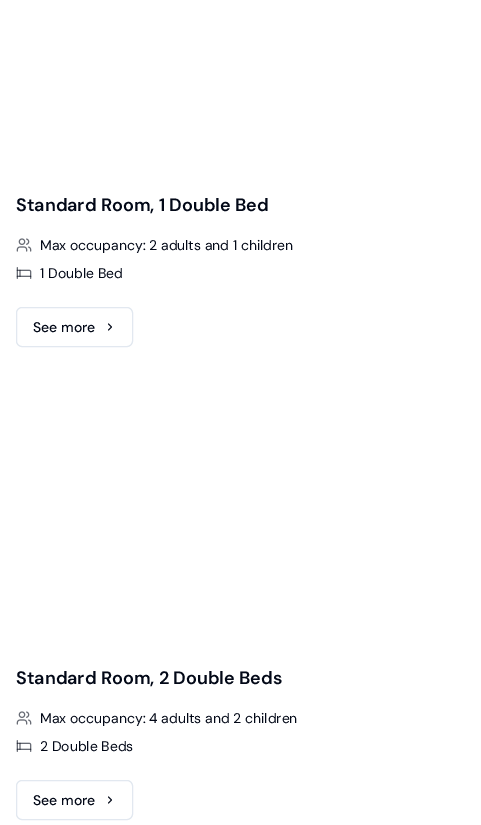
%!PS
<< /PageSize [481 825] >> setpagedevice
/rgb { 3 { 255 div 3 1 roll } repeat setrgbcolor } def
/font { [ exch dup neg 0 0 3 -1 roll 0 0 ] selectfont } def
/text { moveto show } def
/roundrect { 5 dict begin { /r /h /w /y /x } { exch def } forall
  x r add y moveto x w add y 2 copy h add r arct x w add y h add x 1 index r arct
  x y h add x y r arct x y 2 copy exch w add exch r arct closepath end } def
/picture { 5 dict begin { /h /w /y /x /name } { exch def } forall
  gsave x y translate w h scale
  w h 8 [w 0 0 h 0 0] name (r) file false 3 colorimage grestore end } def
0 825 translate 1 -1 scale
4 setmiterlimit
255 255 255 rgb
0 0 481 825 rectfill
(img_01.rgb) 16 238 16 14 picture
(img_02.rgb) 16 267 16 12 picture
226 232 240 rgb
16.5 307.5 116 39 5.5 roundrect stroke
2 8 23 rgb
1 setlinecap
1 setlinejoin
108.5 330 moveto 3 -3 rlineto -3 -3 rlineto stroke
(img_01.rgb) 16 711 16 14 picture
(img_02.rgb) 16 740 16 12 picture
226 232 240 rgb
0 setlinecap
0 setlinejoin
16.5 780.5 116 39 5.5 roundrect stroke
2 8 23 rgb
1 setlinecap
1 setlinejoin
108.5 803 moveto 3 -3 rlineto -3 -3 rlineto stroke
/DMSans-SemiBold 18 font
(Standard Room, 1 Double Bed) 16 211 text
/DMSans-Regular 14 font
(Max occupancy: 2 adults and 1 children) 40 250 text
(1 Double Bed) 40 278 text
/DMSans-Medium 14 font
(See more) 33 332 text
/DMSans-SemiBold 18 font
(Standard Room, 2 Double Beds) 16 684 text
/DMSans-Regular 14 font
(Max occupancy: 4 adults and 2 children) 40 723 text
(2 Double Beds) 40 751 text
/DMSans-Medium 14 font
(See more) 33 805 text
showpage
